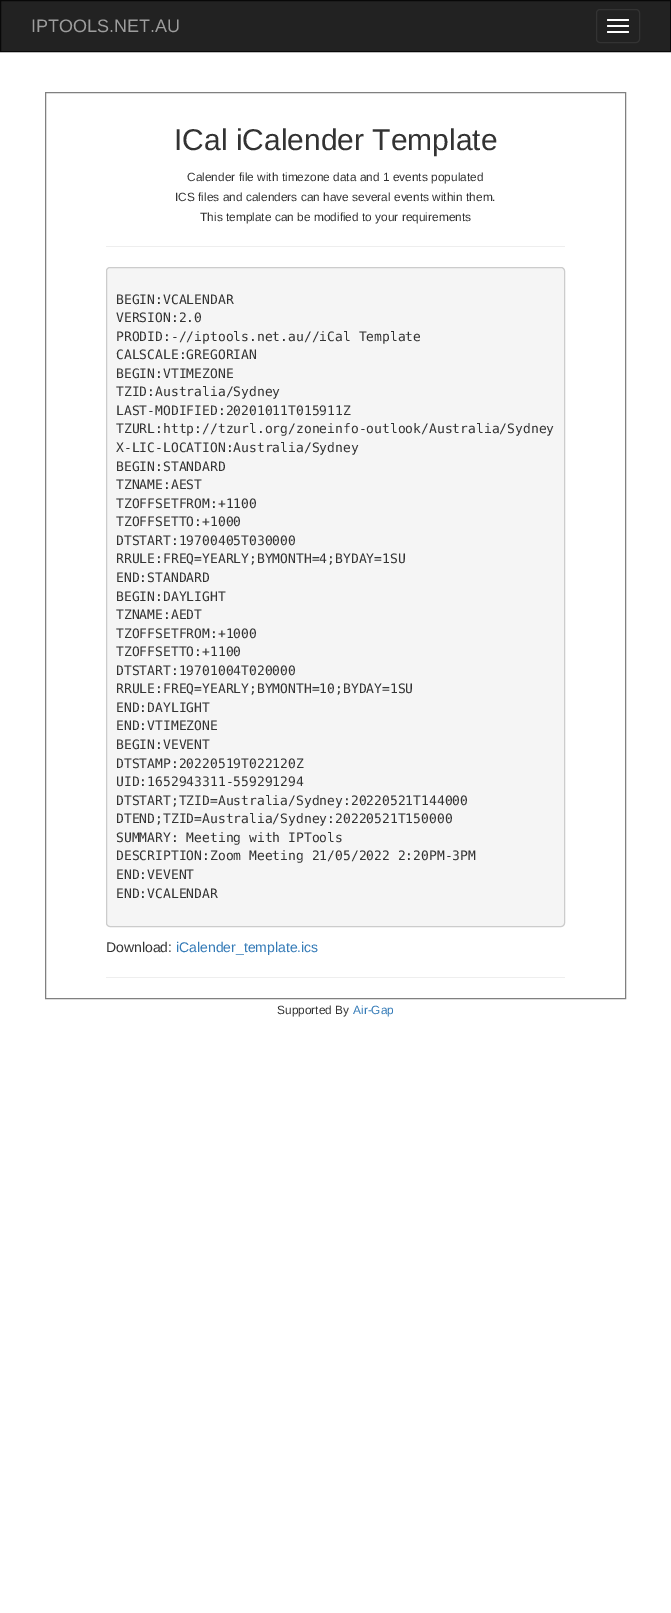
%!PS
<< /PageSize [671 1613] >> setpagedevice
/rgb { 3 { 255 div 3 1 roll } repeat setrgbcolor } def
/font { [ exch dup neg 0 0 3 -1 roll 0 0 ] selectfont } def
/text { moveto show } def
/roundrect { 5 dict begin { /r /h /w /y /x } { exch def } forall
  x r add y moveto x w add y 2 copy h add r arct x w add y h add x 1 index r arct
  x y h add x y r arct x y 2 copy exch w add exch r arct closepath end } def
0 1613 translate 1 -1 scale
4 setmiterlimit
255 255 255 rgb
0 0 671 1613 rectfill
34 34 34 rgb
0.5 0.5 moveto 670 0 rlineto 0 51 rlineto -670 0 rlineto closepath gsave fill grestore
8 8 8 rgb
stroke
51 51 51 rgb
596.5 9.5 43 33 3.5 roundrect stroke
255 255 255 rgb
607 19 22 2 1 roundrect fill
607 25 22 2 1 roundrect fill
607 31 22 2 1 roundrect fill
128 128 128 rgb
45.5 92.5 580 906 rectstroke
238 238 238 rgb
106 246 459 1 rectfill
245 245 245 rgb
106.5 267.5 458 659 3.5 roundrect gsave fill grestore
204 204 204 rgb
stroke
238 238 238 rgb
106 977 459 1 rectfill
/LiberationSans-Regular 18 font
157 157 157 rgb
(IPTOOLS.NET.AU) 31 32 text
/LiberationSans-Regular 30 font
51 51 51 rgb
(ICal iCalender Template) 174 150 text
/LiberationSans-Regular 11.9 font
(Calender file with timezone data and 1 events populated) 187 181 text
(ICS files and calenders can have several events within them.) 175 201 text
(This template can be modified to your requirements) 200 221 text
/DejaVuSansMono-Regular 13 font
(BEGIN:VCALENDAR) 116 304 text
(VERSION:2.0) 116 322 text
(PRODID:-//iptools.net.au//iCal Template) 116 341 text
(CALSCALE:GREGORIAN) 116 359 text
(BEGIN:VTIMEZONE) 116 378 text
(TZID:Australia/Sydney) 116 396 text
(LAST-MODIFIED:20201011T015911Z) 116 415 text
(TZURL:http://tzurl.org/zoneinfo-outlook/Australia/Sydney) 116 433 text
(X-LIC-LOCATION:Australia/Sydney) 116 452 text
(BEGIN:STANDARD) 116 471 text
(TZNAME:AEST) 116 489 text
(TZOFFSETFROM:+1100) 116 508 text
(TZOFFSETTO:+1000) 116 526 text
(DTSTART:19700405T030000) 116 545 text
(RRULE:FREQ=YEARLY;BYMONTH=4;BYDAY=1SU) 116 563 text
(END:STANDARD) 116 582 text
(BEGIN:DAYLIGHT) 116 601 text
(TZNAME:AEDT) 116 619 text
(TZOFFSETFROM:+1000) 116 638 text
(TZOFFSETTO:+1100) 116 656 text
(DTSTART:19701004T020000) 116 675 text
(RRULE:FREQ=YEARLY;BYMONTH=10;BYDAY=1SU) 116 693 text
(END:DAYLIGHT) 116 712 text
(END:VTIMEZONE) 116 730 text
(BEGIN:VEVENT) 116 749 text
(DTSTAMP:20220519T022120Z) 116 768 text
(UID:1652943311-559291294) 116 786 text
(DTSTART;TZID=Australia/Sydney:20220521T144000) 116 805 text
(DTEND;TZID=Australia/Sydney:20220521T150000) 116 823 text
(SUMMARY: Meeting with IPTools) 116 842 text
(DESCRIPTION:Zoom Meeting 21/05/2022 2:20PM-3PM) 116 860 text
(END:VEVENT) 116 879 text
(END:VCALENDAR) 116 898 text
/LiberationSans-Regular 14 font
(Download:) 106 952 text
51 122 183 rgb
(iCalender_template.ics) 176 952 text
/LiberationSans-Regular 11.9 font
51 51 51 rgb
(Supported By) 277 1014 text
51 122 183 rgb
(Air-Gap) 353 1014 text
showpage
